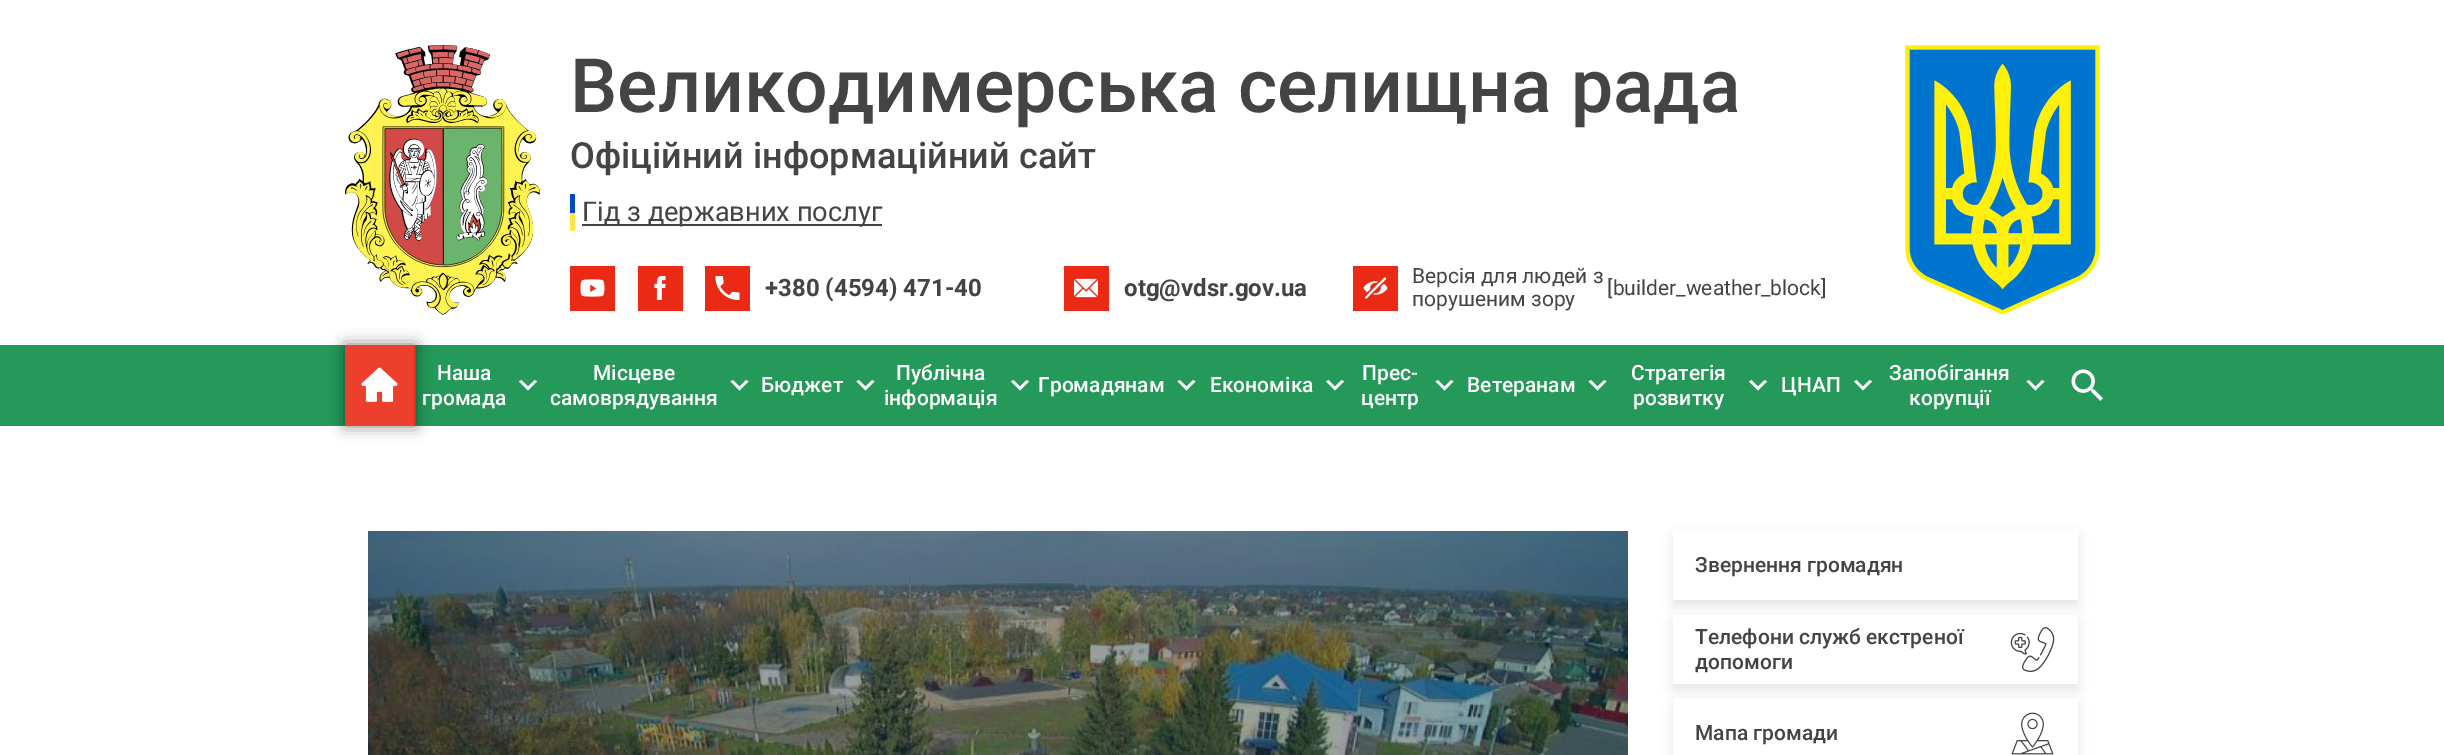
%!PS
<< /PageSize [2444 755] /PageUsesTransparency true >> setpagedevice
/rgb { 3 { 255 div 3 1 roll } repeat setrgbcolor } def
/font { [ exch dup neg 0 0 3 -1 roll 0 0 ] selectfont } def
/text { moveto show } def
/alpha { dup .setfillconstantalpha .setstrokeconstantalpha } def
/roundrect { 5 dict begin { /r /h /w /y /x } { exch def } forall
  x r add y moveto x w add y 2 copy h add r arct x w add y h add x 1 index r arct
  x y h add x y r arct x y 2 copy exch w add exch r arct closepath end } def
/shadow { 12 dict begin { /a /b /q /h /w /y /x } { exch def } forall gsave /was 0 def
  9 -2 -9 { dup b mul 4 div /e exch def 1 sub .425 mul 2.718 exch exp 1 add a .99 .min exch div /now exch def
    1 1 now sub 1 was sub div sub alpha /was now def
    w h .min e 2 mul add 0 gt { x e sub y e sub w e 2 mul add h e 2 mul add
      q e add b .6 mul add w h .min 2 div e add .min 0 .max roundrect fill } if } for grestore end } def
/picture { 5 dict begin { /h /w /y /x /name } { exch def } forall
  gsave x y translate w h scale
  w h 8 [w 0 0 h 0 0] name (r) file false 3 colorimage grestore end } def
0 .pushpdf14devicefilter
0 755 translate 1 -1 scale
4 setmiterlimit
255 255 255 rgb
0 0 2444 755 rectfill
(img_01.rgb) 345 45 195 270 picture
0 75 193 rgb
570 194 5 19 rectfill
68 68 68 rgb
582 224 300 2 rectfill
255 228 73 rgb
570 213 5 18 rectfill
234 42 21 rgb
570 266 45 45 rectfill
(img_02.rgb) 580 279 25 18 picture
638 266 45 45 rectfill
(img_03.rgb) 654 276 12 24 picture
705 266 45 45 rectfill
(img_04.rgb) 715 276 25 24 picture
1064 266 45 45 rectfill
(img_05.rgb) 1074 278 24 20 picture
1353 266 45 45 rectfill
(img_06.rgb) 1363 277 25 22 picture
(img_07.rgb) 1905 45 195 270 picture
37 153 89 rgb
0 345 2444 81 rectfill
0 0 0 rgb
345 345 71 81 0 7.5 0.5 shadow
234 42 21 rgb
414 345 2 81 rectfill
236 63 44 rgb
345 345 69 81 rectfill
(img_08.rgb) 361 367 37 35 picture
255 255 255 rgb
534.5 380 moveto -6.5 6.5 rlineto -6.5 -6.5 rlineto -2.5 1.5 rlineto 9 9 rlineto 9 -9 rlineto closepath fill
746 380 moveto -6.5 6.5 rlineto -6.5 -6.5 rlineto -2.5 1.5 rlineto 9 9 rlineto 9 -9 rlineto closepath fill
872 380 moveto -6.5 6.5 rlineto -6.5 -6.5 rlineto -2.5 1.5 rlineto 9 9 rlineto 9 -9 rlineto closepath fill
1026.5 380 moveto -6.5 6.5 rlineto -6.5 -6.5 rlineto -2.5 1.5 rlineto 9 9 rlineto 9 -9 rlineto closepath fill
1193 380 moveto -6.5 6.5 rlineto -6.5 -6.5 rlineto -2.5 1.5 rlineto 9 9 rlineto 9 -9 rlineto closepath fill
1341.5 380 moveto -6.5 6.5 rlineto -6.5 -6.5 rlineto -2.5 1.5 rlineto 9 9 rlineto 9 -9 rlineto closepath fill
1451 380 moveto -6.5 6.5 rlineto -6.5 -6.5 rlineto -2.5 1.5 rlineto 9 9 rlineto 9 -9 rlineto closepath fill
1604 380 moveto -6.5 6.5 rlineto -6.5 -6.5 rlineto -2.5 1.5 rlineto 9 9 rlineto 9 -9 rlineto closepath fill
1764.5 380 moveto -6.5 6.5 rlineto -6.5 -6.5 rlineto -2.5 1.5 rlineto 9 9 rlineto 9 -9 rlineto closepath fill
1869.5 380 moveto -6.5 6.5 rlineto -6.5 -6.5 rlineto -2.5 1.5 rlineto 9 9 rlineto 9 -9 rlineto closepath fill
2042 380 moveto -6.5 6.5 rlineto -6.5 -6.5 rlineto -2.5 1.5 rlineto 9 9 rlineto 9 -9 rlineto closepath fill
(img_09.rgb) 2071 369 32 32 picture
(img_10.rgb) 368 531 1260 224 picture
152 152 152 rgb
1673 537 405 69 0 6 0.25 shadow
255 255 255 rgb
1673 531 405 69 rectfill
152 152 152 rgb
1673 621 405 69 0 6 0.25 shadow
255 255 255 rgb
1673 615 405 69 rectfill
(img_11.rgb) 2010 627 45 45 picture
152 152 152 rgb
1673 705 405 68 0 6 0.25 shadow
255 255 255 rgb
1673 699 405 56 rectfill
(img_12.rgb) 2011 712 43 43 picture
/Roboto-Medium 75 font
68 68 68 rgb
(Великодимерська селищна рада) 570 112 text
/Roboto-Medium 36 font
(Офіційний інформаційний сайт) 570 168 text
/Roboto-Regular 27.25 font
(Гід з державних послуг) 582 221 text
/Roboto-Bold 24 font
(+380 \(4594\) 471-40) 765 296 text
(otg@vdsr.gov.ua) 1124 296 text
/Roboto-Regular 21 font
(Версія для людей з) 1412 283 text
(порушеним зору) 1412 306 text
([builder_weather_block]) 1607 295 text
/Roboto-Medium 21 font
255 255 255 rgb
(Наша) 437 380 text
(громада) 422 405 text
(Місцеве) 593 380 text
(самоврядування) 550 405 text
(Бюджет) 761 392 text
(Публічна) 896 380 text
(інформація) 884 405 text
(Громадянам) 1038 392 text
(Економіка) 1210 392 text
(Прес-) 1362 380 text
(центр) 1361 405 text
(Ветеранам) 1467 392 text
(Стратегія) 1631 380 text
(розвитку) 1633 405 text
(ЦНАП) 1781 392 text
(Запобігання) 1889 380 text
(корупції) 1909 405 text
68 68 68 rgb
(Звернення громадян) 1695 572 text
(Телефони служб екстреної) 1695 644 text
(допомоги) 1695 669 text
(Мапа громади) 1695 740 text
.poppdf14devicefilter showpage
